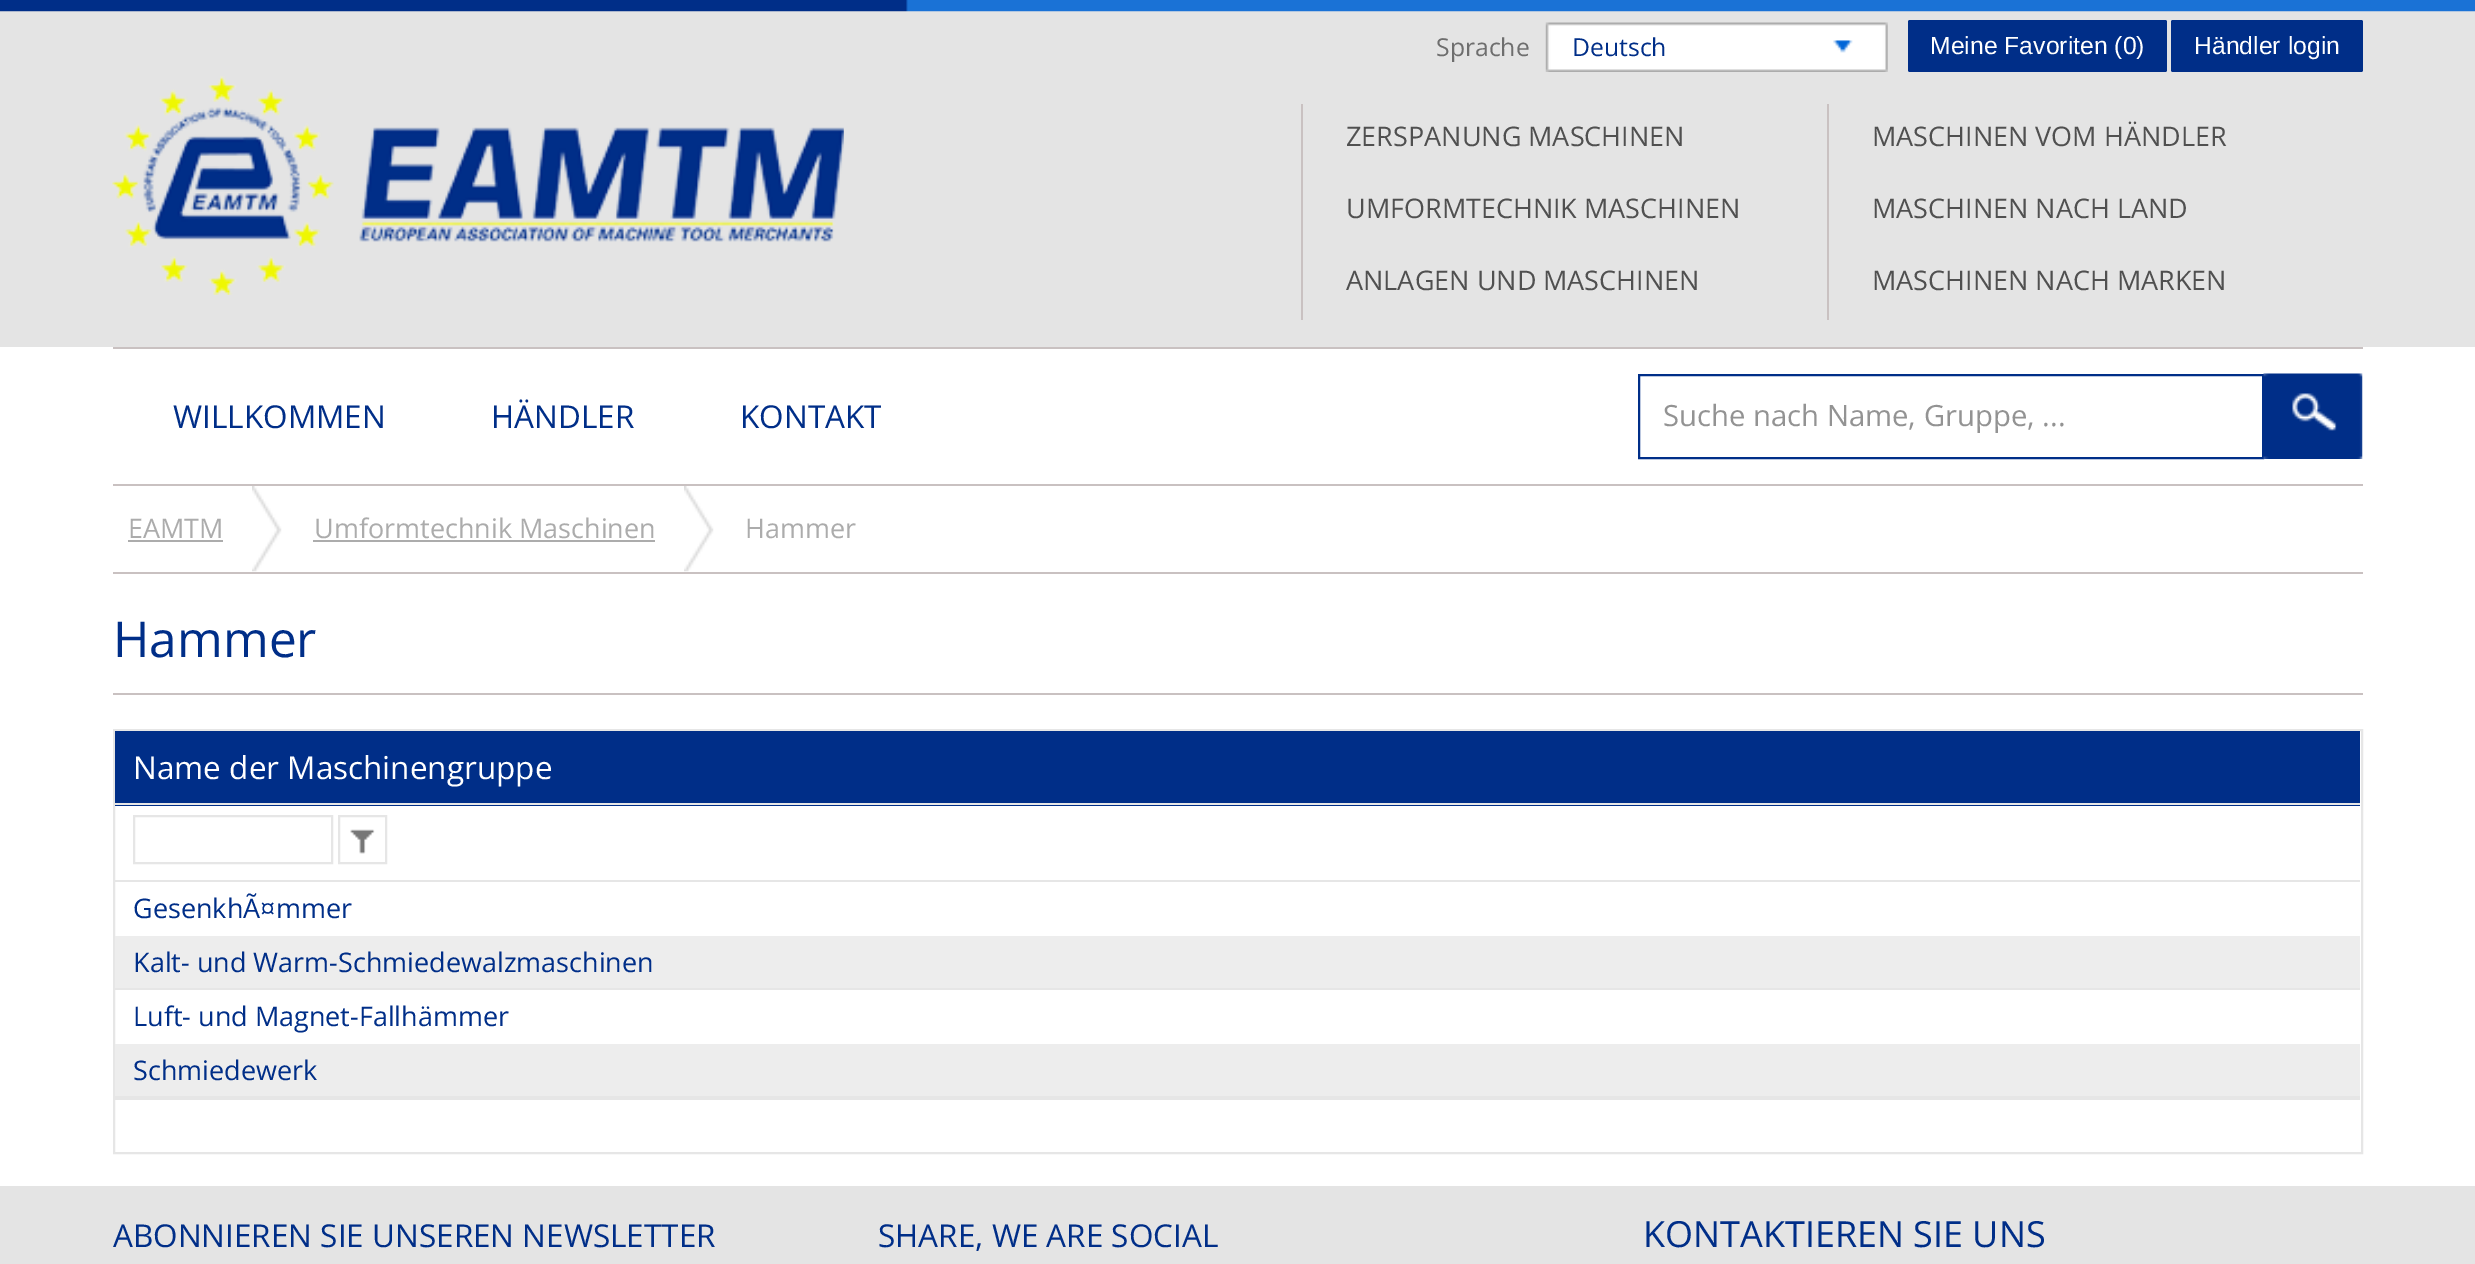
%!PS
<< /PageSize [2475 1264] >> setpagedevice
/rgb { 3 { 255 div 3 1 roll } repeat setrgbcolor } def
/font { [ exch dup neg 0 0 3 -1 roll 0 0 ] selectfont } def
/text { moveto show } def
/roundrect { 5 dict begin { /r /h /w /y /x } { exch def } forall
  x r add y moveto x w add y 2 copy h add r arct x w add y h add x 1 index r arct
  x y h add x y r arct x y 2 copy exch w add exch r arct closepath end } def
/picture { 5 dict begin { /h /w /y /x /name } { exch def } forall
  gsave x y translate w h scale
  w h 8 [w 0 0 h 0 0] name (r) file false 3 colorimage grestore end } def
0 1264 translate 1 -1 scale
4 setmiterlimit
255 255 255 rgb
0 0 2475 1264 rectfill
228 228 228 rgb
0 11 2475 336 rectfill
(img_01.rgb) 0 0 2475 12 picture
(img_02.rgb) 112 76 732 219 picture
(img_03.rgb) 1545 22 343 50 picture
0 46 136 rgb
1908 20 259 52 2 roundrect fill
2171 20 192 52 2 roundrect fill
201 193 193 rgb
1301 104 2 216 rectfill
1827 104 2 216 rectfill
113 347 2250 2 rectfill
113 484 2250 2 rectfill
0 46 136 rgb
2 setlinewidth
1639 375 624 83 rectstroke
(img_04.rgb) 2263 373 100 86 picture
201 193 193 rgb
113 572 2250 2 rectfill
172 172 172 rgb
128 540 95 2 rectfill
(img_05.rgb) 252 486 30 86 picture
313 540 342 2 rectfill
(img_06.rgb) 684 486 30 86 picture
201 193 193 rgb
113 693 2250 2 rectfill
230 230 230 rgb
114 730 2248 423 rectstroke
0 46 136 rgb
115 731 2245 75 rectfill
230 230 230 rgb
115 803 2245 2 rectfill
115 880 2245 2 rectfill
134 816 198 47 rectstroke
(img_07.rgb) 350 829 25 25 picture
339 816 47 47 rectstroke
237 237 237 rgb
115 936 2245 52 rectfill
230 230 230 rgb
115 988 2245 2 rectfill
237 237 237 rgb
115 1044 2245 52 rectfill
230 230 230 rgb
115 1096 2245 4 rectfill
228 228 228 rgb
0 1186 2475 78 rectfill
/OpenSans-Regular 24.75 font
110 110 110 rgb
(Sprache) 1436 56 text
0 46 136 rgb
(Deutsch) 1572 56 text
/LiberationSans-Regular 24.75 font
255 255 255 rgb
(Meine Favoriten \(0\)) 1930 54 text
(Händler login) 2194 54 text
/OpenSans-Regular 27 font
80 80 80 rgb
(ZERSPANUNG MASCHINEN) 1346 146 text
(UMFORMTECHNIK MASCHINEN) 1346 218 text
(ANLAGEN UND MASCHINEN) 1346 290 text
(MASCHINEN VOM HÄNDLER) 1872 146 text
(MASCHINEN NACH LAND) 1872 218 text
(MASCHINEN NACH MARKEN) 1872 290 text
/OpenSans-Regular 31.5 font
0 46 136 rgb
(WILLKOMMEN) 173 428 text
(HÄNDLER) 491 428 text
(KONTAKT) 740 428 text
/OpenSans-Regular 29.25 font
147 147 147 rgb
(Suche nach Name, Gruppe, ...) 1663 426 text
/OpenSans-Regular 27 font
172 172 172 rgb
(EAMTM) 128 538 text
(Umformtechnik Maschinen) 314 538 text
(Hammer) 745 538 text
/OpenSans-Regular 49.5 font
0 46 136 rgb
(Hammer) 113 657 text
/OpenSans-Regular 31.5 font
255 255 255 rgb
(Name der Maschinengruppe) 133 779 text
/OpenSans-Regular 27 font
0 46 136 rgb
(GesenkhÃ¤mmer) 133 918 text
(Kalt- und Warm-Schmiedewalzmaschinen) 133 972 text
(Luft- und Magnet-Fallhämmer) 133 1026 text
(Schmiedewerk) 133 1080 text
/OpenSans-Regular 31.5 font
(ABONNIEREN SIE UNSEREN NEWSLETTER) 113 1247 text
(SHARE, WE ARE SOCIAL) 878 1247 text
/OpenSans-Regular 36 font
(KONTAKTIEREN SIE UNS) 1643 1247 text
showpage
